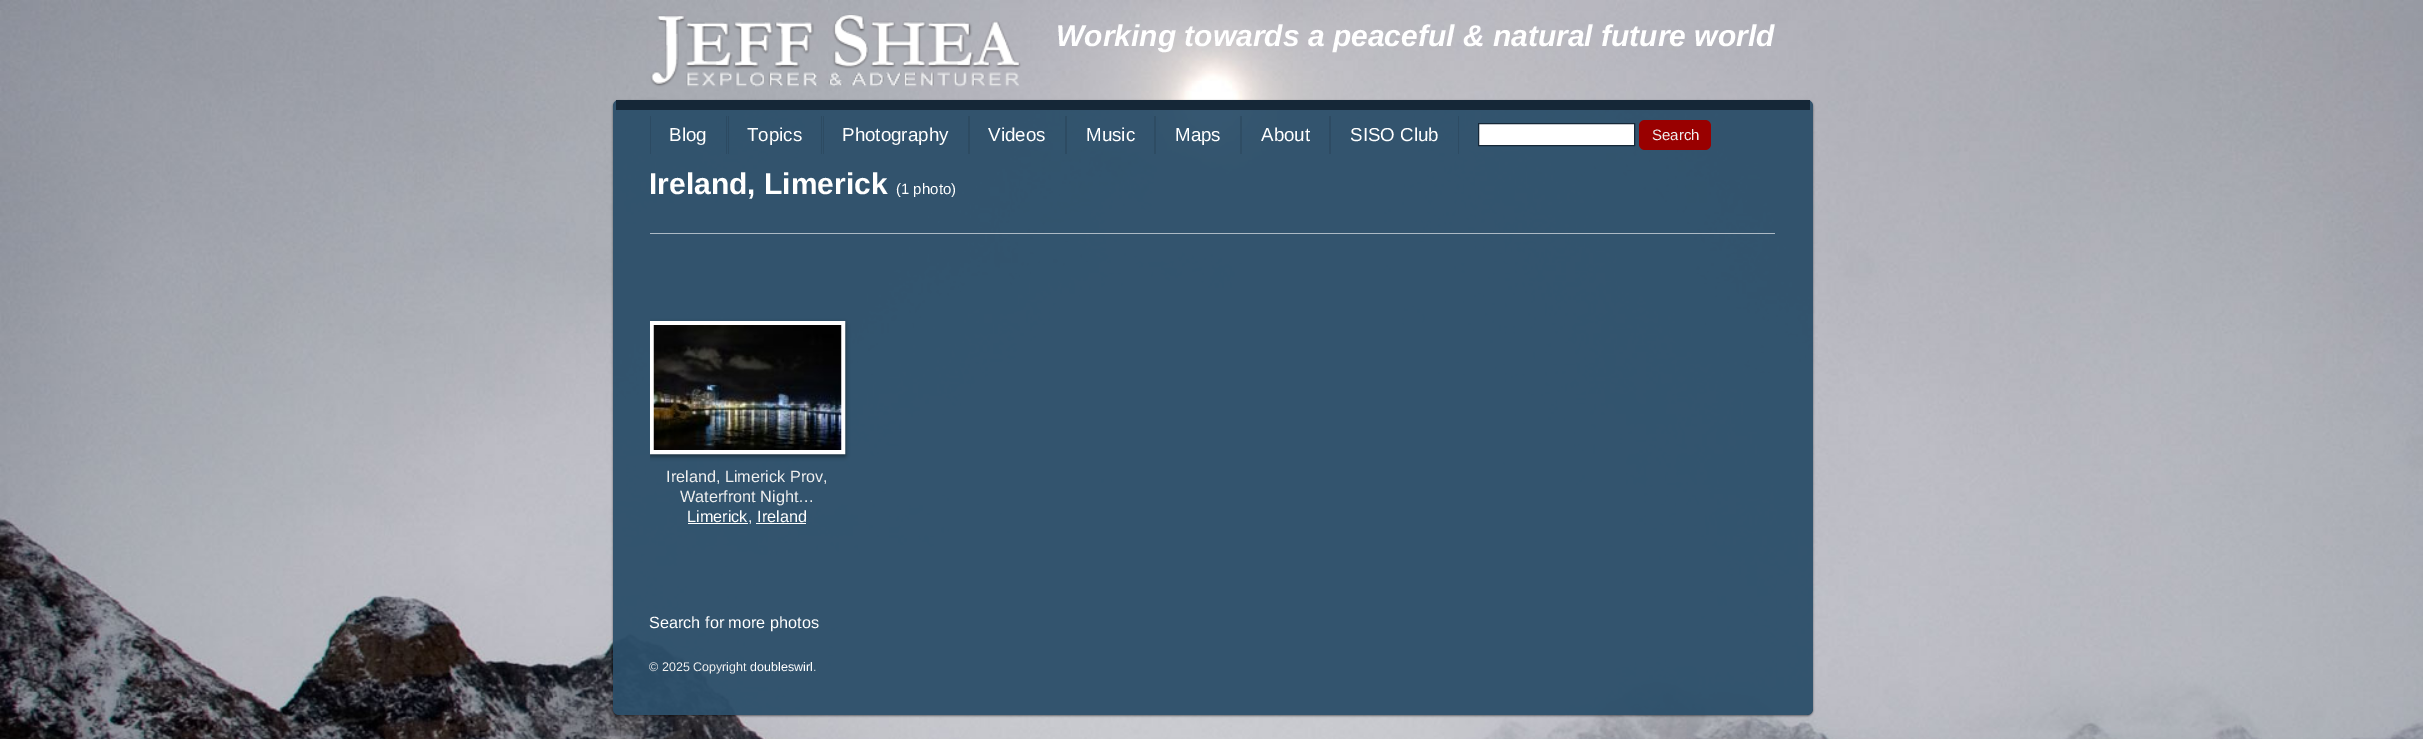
%!PS
<< /PageSize [2423 739] /PageUsesTransparency true >> setpagedevice
/rgb { 3 { 255 div 3 1 roll } repeat setrgbcolor } def
/font { [ exch dup neg 0 0 3 -1 roll 0 0 ] selectfont } def
/text { moveto show } def
/alpha { dup .setfillconstantalpha .setstrokeconstantalpha } def
/roundrect { 5 dict begin { /r /h /w /y /x } { exch def } forall
  x r add y moveto x w add y 2 copy h add r arct x w add y h add x 1 index r arct
  x y h add x y r arct x y 2 copy exch w add exch r arct closepath end } def
/shadow { 12 dict begin { /a /b /q /h /w /y /x } { exch def } forall gsave /was 0 def
  9 -2 -9 { dup b mul 4 div /e exch def 1 sub .425 mul 2.718 exch exp 1 add a .99 .min exch div /now exch def
    1 1 now sub 1 was sub div sub alpha /was now def
    w h .min e 2 mul add 0 gt { x e sub y e sub w e 2 mul add h e 2 mul add
      q e add b .6 mul add w h .min 2 div e add .min 0 .max roundrect fill } if } for grestore end } def
/picture { 5 dict begin { /h /w /y /x /name } { exch def } forall
  gsave x y translate w h scale
  w h 8 [w 0 0 h 0 0] name (r) file false 3 colorimage grestore end } def
0 .pushpdf14devicefilter
0 739 translate 1 -1 scale
4 setmiterlimit
255 255 255 rgb
0 0 2423 739 rectfill
(img_01.rgb) 0 0 2423 739 picture
(img_02.rgb) 650 14 371 73 picture
gsave
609 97 moveto 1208 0 rlineto 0 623 rlineto -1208 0 rlineto closepath 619 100 moveto 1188 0 rlineto 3.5 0 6 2.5 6 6 rcurveto 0 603 rlineto 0 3.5 -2.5 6 -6 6 rcurveto -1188 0 rlineto -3.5 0 -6 -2.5 -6 -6 rcurveto 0 -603 rlineto 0 -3.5 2.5 -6 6 -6 rcurveto closepath eoclip newpath
0 0 0 rgb
613 101 1200 615 6 1 0.5 shadow
grestore
0.95 alpha
43 78 105 rgb
613 100 1200 615 6 roundrect fill
1 alpha
21 39 55 rgb
616 100 1194 10 rectfill
44 74 98 rgb
726 116 1 38 rectfill
650 116 1 38 rectfill
45 75 98 rgb
821 116 1 38 rectfill
44 74 98 rgb
728 116 1 38 rectfill
45 75 98 rgb
968 116 2 38 rectfill
823 116 1 38 rectfill
1065 116 2 38 rectfill
46 76 99 rgb
1154 116 2 38 rectfill
47 77 100 rgb
1240 116 2 38 rectfill
46 75 99 rgb
1329 116 2 38 rectfill
45 75 99 rgb
1458 116 1 38 rectfill
255 255 255 rgb
1478.5 123.5 moveto 156 0 rlineto 0 22 rlineto -156 0 rlineto closepath gsave fill grestore
21 39 55 rgb
stroke
153 0 0 rgb
1639 120 72 30 6 roundrect fill
173 186 197 rgb
650 233 1125 1 rectfill
gsave
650 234 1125 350 rectclip
0 0 0 rgb
650 324 195 132 0 2.5 0.5 shadow
grestore
255 255 255 rgb
4 setlinewidth
652 323 191 129 rectstroke
(img_03.rgb) 653 325 189 125 picture
688 523 60 1 rectfill
756 523 50 1 rectfill
/LiberationSans-BoldItalic 30 font
(Working towards a peaceful & natural future world) 1056 46 text
/LiberationSans-Regular 18.75 font
(Blog) 669 141 text
(Topics) 747 141 text
(Photography) 842 141 text
(Videos) 988 141 text
(Music) 1086 141 text
(Maps) 1175 141 text
(About) 1261 141 text
(SISO Club) 1350 141 text
/LiberationSans-Regular 15 font
239 239 239 rgb
(Search) 1652 140 text
/LiberationSans-Bold 30 font
255 255 255 rgb
(Ireland, Limerick) 649 194 text
/LiberationSans-Regular 15 font
(\(1 photo\)) 896 194 text
/LiberationSans-Regular 16.25 font
239 239 239 rgb
(Ireland, Limerick Prov,) 666 482 text
(Waterfront Night…) 680 502 text
255 255 255 rgb
(Limerick) 687 522 text
239 239 239 rgb
(,) 748 522 text
255 255 255 rgb
(Ireland) 757 522 text
(Search for more photos) 649 628 text
/LiberationSans-Regular 12.5 font
239 239 239 rgb
(© 2025 Copyright) 649 671 text
255 255 255 rgb
(doubleswirl) 750 671 text
239 239 239 rgb
(.) 813 671 text
.poppdf14devicefilter showpage
